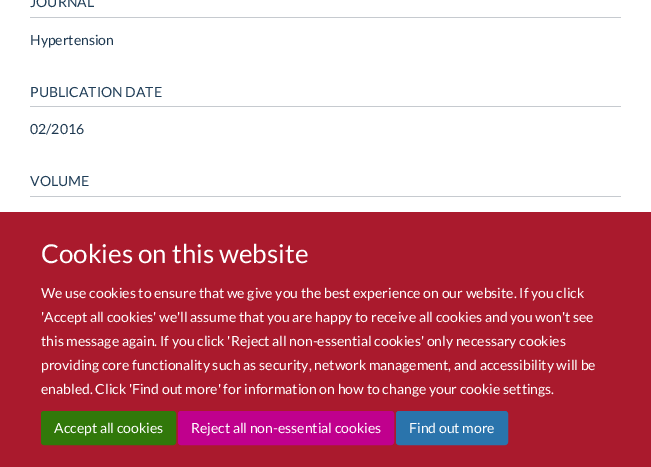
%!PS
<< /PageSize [651 467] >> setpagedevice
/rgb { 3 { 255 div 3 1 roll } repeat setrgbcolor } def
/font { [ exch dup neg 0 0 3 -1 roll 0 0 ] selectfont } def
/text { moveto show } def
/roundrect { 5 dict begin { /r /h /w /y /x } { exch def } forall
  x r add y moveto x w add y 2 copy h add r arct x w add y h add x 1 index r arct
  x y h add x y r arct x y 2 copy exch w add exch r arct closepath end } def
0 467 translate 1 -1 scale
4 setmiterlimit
255 255 255 rgb
0 0 651 467 rectfill
198 202 207 rgb
30 17 591 1 rectfill
30 106 591 1 rectfill
30 196 591 1 rectfill
170 26 45 rgb
0 212 651 255 rectfill
49 120 10 rgb
41.5 411.5 134 33 2.5 roundrect gsave fill grestore
stroke
192 0 141 rgb
178.5 411.5 215 33 2.5 roundrect gsave fill grestore
stroke
42 116 172 rgb
396.5 411.5 111 33 2.5 roundrect gsave fill grestore
stroke
/Lato-Regular 14 font
32 62 88 rgb
(JOURNAL) 30 7 text
29 56 80 rgb
(Hypertension) 30 45 text
32 62 88 rgb
(PUBLICATION DATE) 30 97 text
29 56 80 rgb
(02/2016) 30 134 text
32 62 88 rgb
(VOLUME) 30 186 text
/Lato-Regular 26 font
255 255 255 rgb
(Cookies on this website) 41 263 text
/Lato-Regular 14 font
(We use cookies to ensure that we give you the best experience on our website. If you click) 41 298 text
('Accept all cookies' we'll assume that you are happy to receive all cookies and you won't see) 41 322 text
(this message again. If you click 'Reject all non-essential cookies' only necessary cookies) 41 346 text
(providing core functionality such as security, network management, and accessibility will be) 41 370 text
(enabled. Click 'Find out more' for information on how to change your cookie settings.) 41 394 text
(Accept all cookies) 54 433 text
(Reject all non-essential cookies) 191 433 text
(Find out more) 409 433 text
showpage
